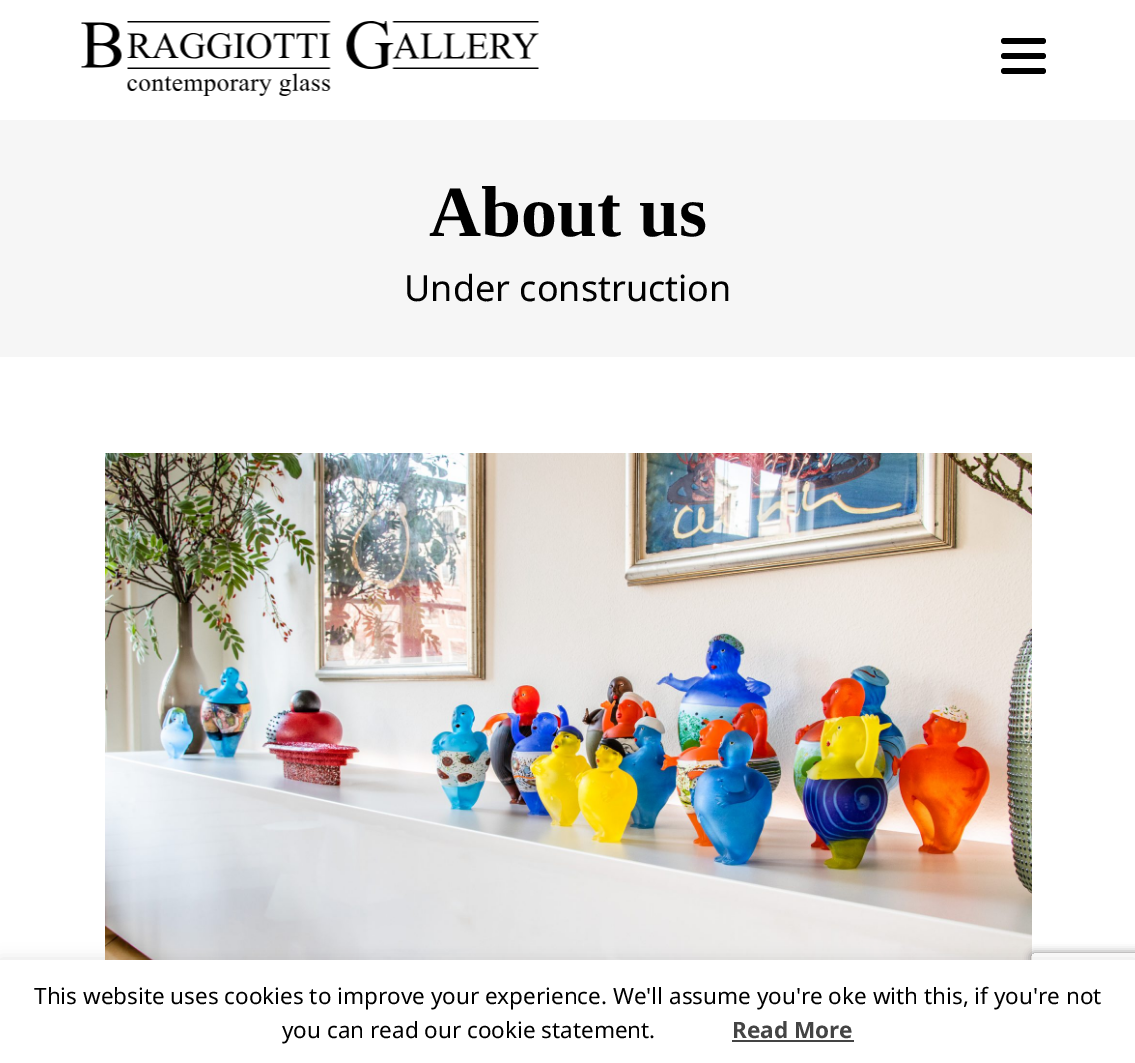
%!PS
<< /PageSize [1135 1063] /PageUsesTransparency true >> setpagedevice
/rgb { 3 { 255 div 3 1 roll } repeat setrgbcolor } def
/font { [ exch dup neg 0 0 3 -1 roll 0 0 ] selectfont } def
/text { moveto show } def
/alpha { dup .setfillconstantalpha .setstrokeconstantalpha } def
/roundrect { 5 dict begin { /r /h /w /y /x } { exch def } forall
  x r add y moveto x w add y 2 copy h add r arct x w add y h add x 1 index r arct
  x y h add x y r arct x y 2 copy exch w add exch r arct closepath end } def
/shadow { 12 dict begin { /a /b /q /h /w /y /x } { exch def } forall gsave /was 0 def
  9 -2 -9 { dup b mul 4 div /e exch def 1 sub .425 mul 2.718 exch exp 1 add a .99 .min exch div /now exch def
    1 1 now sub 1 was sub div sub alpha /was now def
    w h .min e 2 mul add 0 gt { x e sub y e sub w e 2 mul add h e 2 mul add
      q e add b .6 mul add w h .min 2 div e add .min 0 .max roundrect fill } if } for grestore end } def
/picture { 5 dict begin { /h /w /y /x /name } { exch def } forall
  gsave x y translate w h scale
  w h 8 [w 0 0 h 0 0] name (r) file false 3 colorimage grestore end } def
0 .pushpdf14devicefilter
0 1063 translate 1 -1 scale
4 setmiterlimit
255 255 255 rgb
0 0 1135 1063 rectfill
(img_01.rgb) 81 21 458 75 picture
0 0 0 rgb
1001 68 45 6 3 roundrect fill
1001 38 45 6 3 roundrect fill
1001 53 45 6 3 roundrect fill
246 246 246 rgb
0 120 1135 237 rectfill
(img_02.rgb) 105 453 927 507 picture
gsave
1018 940 moveto 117 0 rlineto 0 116 rlineto -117 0 rlineto closepath 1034 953 moveto 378 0 rlineto 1.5 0 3 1.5 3 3 rcurveto 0 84 rlineto 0 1.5 -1.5 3 -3 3 rcurveto -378 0 rlineto -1.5 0 -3 -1.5 -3 -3 rcurveto 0 -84 rlineto 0 -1.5 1.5 -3 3 -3 rcurveto closepath eoclip newpath
128 128 128 rgb
1031 953 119 90 3 4 1 shadow
grestore
172 171 171 rgb
0 959 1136 103 0 7.5 0.3 shadow
255 255 255 rgb
0 960 1135 103 rectfill
68 68 68 rgb
732 1040 122 2 rectfill
/LiberationSerif-Bold 72 font
0 0 0 rgb
(About us) 429 236 text
/NotoSans-Regular 36 font
(Under construction) 404 301 text
/NotoSans-Regular 22.5 font
(This website uses cookies to improve your experience. We'll assume you're oke with this, if you're not) 34 1004 text
(you can read our cookie statement.) 282 1038 text
/NotoSans-Bold 22.5 font
68 68 68 rgb
(Read More) 732 1038 text
.poppdf14devicefilter showpage
